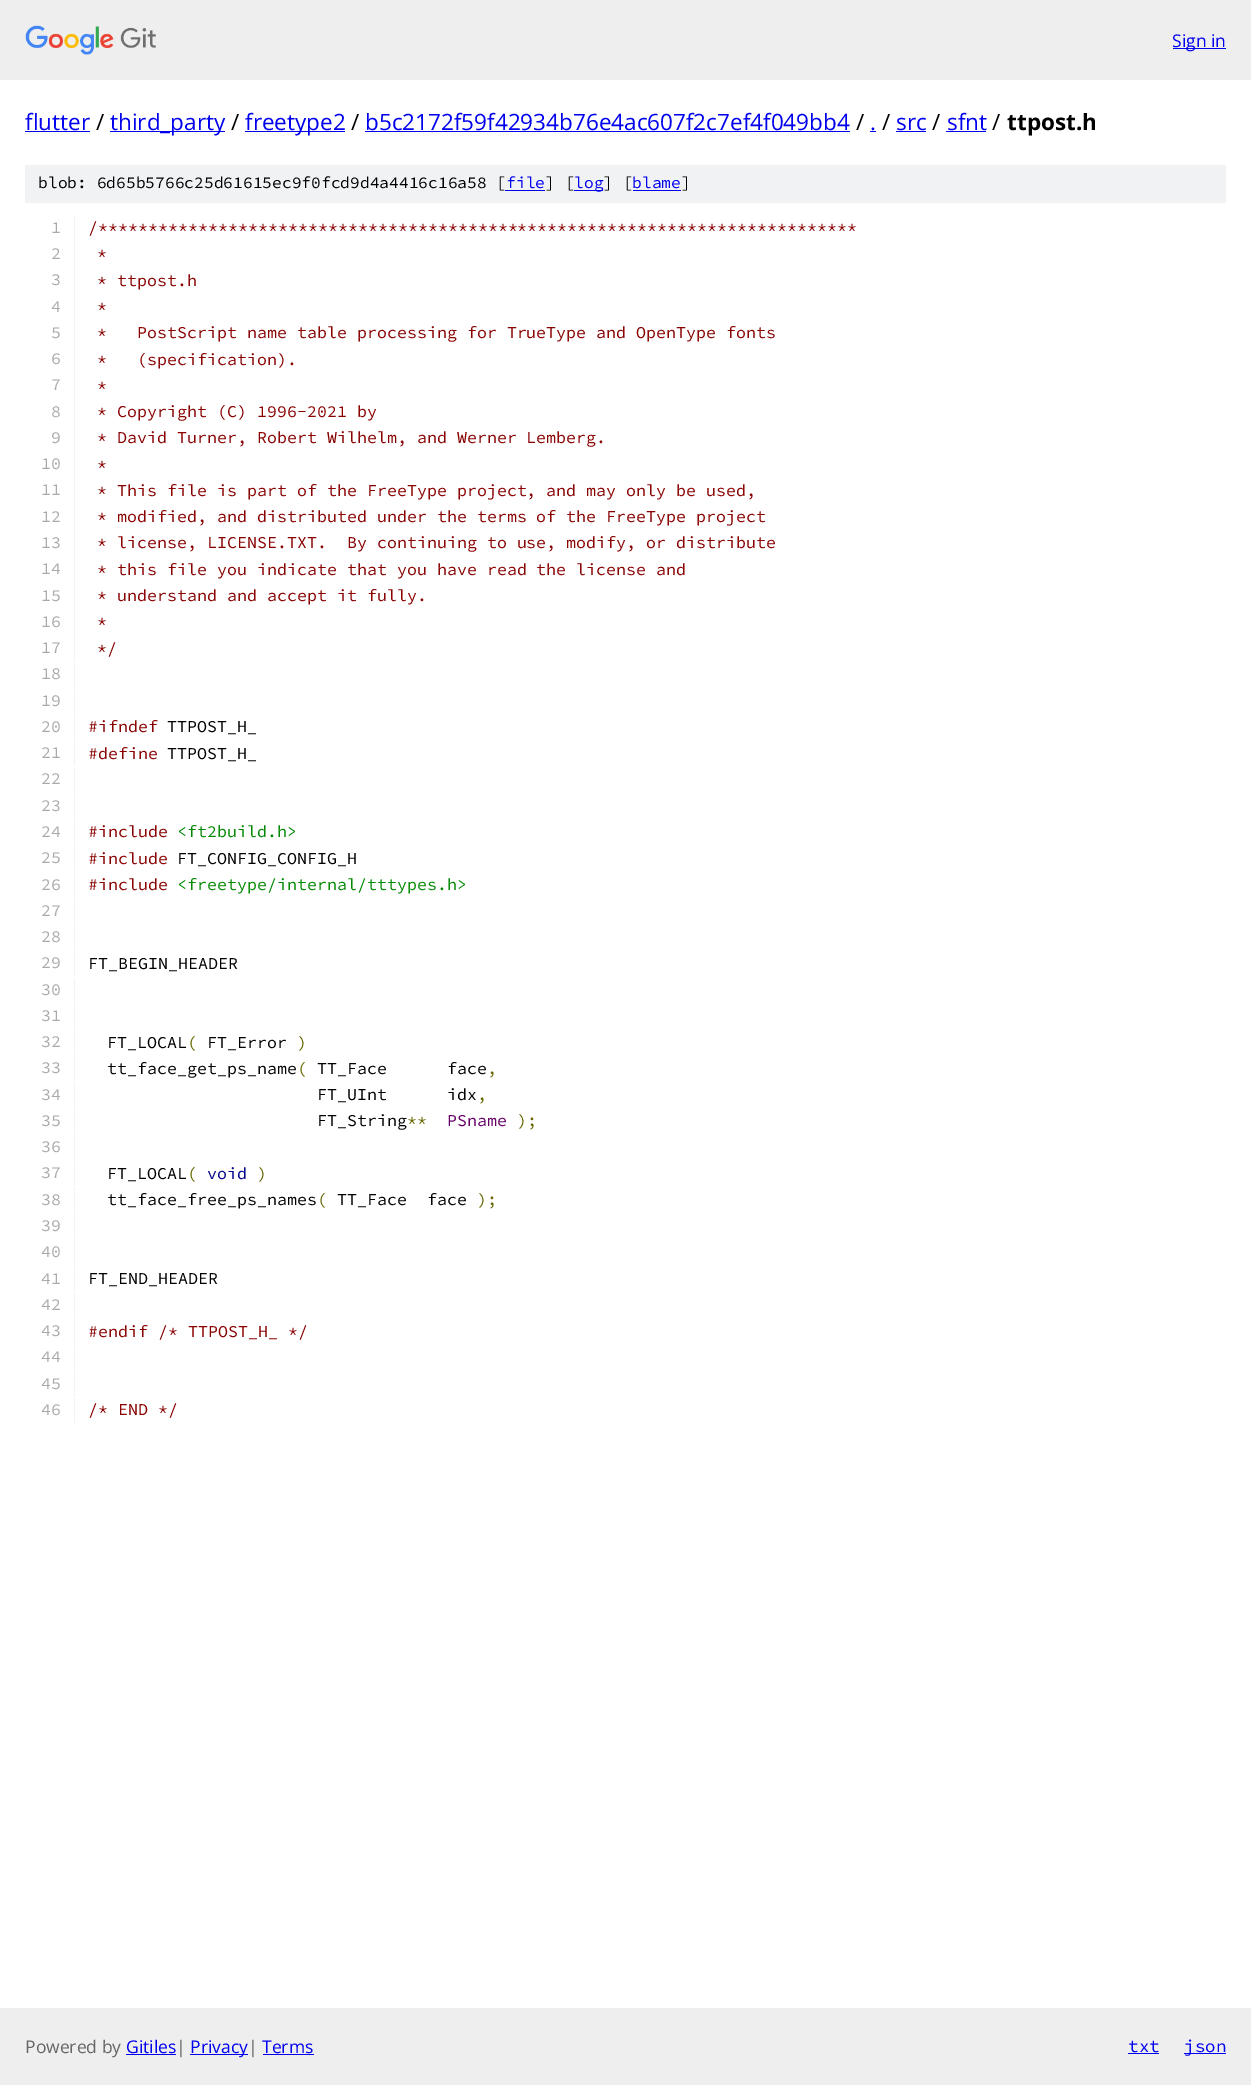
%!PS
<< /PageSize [1251 2085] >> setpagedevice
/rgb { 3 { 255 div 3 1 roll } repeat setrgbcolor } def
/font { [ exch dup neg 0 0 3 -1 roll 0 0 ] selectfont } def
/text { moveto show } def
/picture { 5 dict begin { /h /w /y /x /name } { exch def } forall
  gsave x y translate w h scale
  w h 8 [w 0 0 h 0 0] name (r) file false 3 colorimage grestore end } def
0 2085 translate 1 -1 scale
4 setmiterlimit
255 255 255 rgb
0 0 1251 2085 rectfill
238 238 238 rgb
0 0 1251 80 rectfill
(img_01.rgb) 25 25 131 30 picture
0 0 238 rgb
1173 48 53 1 rectfill
25 131 65 1 rectfill
110 131 115 1 rectfill
245 131 100 1 rectfill
365 131 485 1 rectfill
870 131 6 1 rectfill
896 131 30 1 rectfill
946 131 40 1 rectfill
241 242 243 rgb
25 165 1201 38 rectfill
0 0 238 rgb
505 190 40 1 rectfill
574 190 29 1 rectfill
633 190 48 1 rectfill
241 242 243 rgb
74 215 1 446 rectfill
74 663 1 25 rectfill
74 689 1 25 rectfill
74 715 1 25 rectfill
74 741 1 25 rectfill
74 768 1 25 rectfill
74 794 1 25 rectfill
74 820 1 25 rectfill
74 846 1 25 rectfill
74 873 1 25 rectfill
74 899 1 25 rectfill
74 925 1 25 rectfill
74 951 1 25 rectfill
74 978 1 25 rectfill
74 1004 1 25 rectfill
74 1030 1 25 rectfill
74 1056 1 25 rectfill
74 1083 1 25 rectfill
74 1109 1 25 rectfill
74 1135 1 25 rectfill
74 1161 1 25 rectfill
74 1188 1 25 rectfill
74 1214 1 25 rectfill
74 1240 1 25 rectfill
74 1266 1 25 rectfill
74 1293 1 25 rectfill
74 1319 1 25 rectfill
74 1345 1 25 rectfill
74 1371 1 25 rectfill
74 1398 1 25 rectfill
238 238 238 rgb
0 2008 1251 77 rectfill
0 0 238 rgb
126 2054 50 1 rectfill
190 2054 58 1 rectfill
263 2054 51 1 rectfill
1128 2053 31 1 rectfill
1184 2053 42 1 rectfill
/OpenSans-Regular 17.5 font
(Sign in) 1172 47 text
/OpenSans-Regular 22.5 font
(flutter) 25 130 text
0 0 0 rgb
(/) 96 130 text
0 0 238 rgb
(third_party) 110 130 text
0 0 0 rgb
(/) 231 130 text
0 0 238 rgb
(freetype2) 245 130 text
0 0 0 rgb
(/) 351 130 text
0 0 238 rgb
(b5c2172f59f42934b76e4ac607f2c7ef4f049bb4) 365 130 text
0 0 0 rgb
(/) 856 130 text
0 0 238 rgb
(.) 870 130 text
0 0 0 rgb
(/) 882 130 text
0 0 238 rgb
(src) 896 130 text
0 0 0 rgb
(/) 932 130 text
0 0 238 rgb
(sfnt) 947 130 text
0 0 0 rgb
(/) 992 130 text
/OpenSans-Bold 22.5 font
(ttpost.h) 1007 130 text
/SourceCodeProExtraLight-ExtraLight 16.25 font
(blob: 6d65b5766c25d61615ec9f0fcd9d4a4416c16a58 [) 38 188 text
0 0 238 rgb
(file) 506 188 text
0 0 0 rgb
(] [) 545 188 text
0 0 238 rgb
(log) 574 188 text
0 0 0 rgb
(] [) 603 188 text
0 0 238 rgb
(blame) 632 188 text
0 0 0 rgb
(]) 681 188 text
/SourceCodeProExtraLight-ExtraLight 16.65 font
170 170 170 rgb
(1) 51 233 text
136 0 0 rgb
(/****************************************************************************) 88 233 text
170 170 170 rgb
(2) 51 259 text
136 0 0 rgb
(*) 97 259 text
170 170 170 rgb
(3) 51 285 text
136 0 0 rgb
(* ttpost.h) 97 286 text
170 170 170 rgb
(4) 51 312 text
136 0 0 rgb
(*) 97 312 text
170 170 170 rgb
(5) 51 338 text
136 0 0 rgb
(*   PostScript name table processing for TrueType and OpenType fonts) 97 338 text
170 170 170 rgb
(6) 51 364 text
136 0 0 rgb
(*   \(specification\).) 97 365 text
170 170 170 rgb
(7) 51 390 text
136 0 0 rgb
(*) 97 391 text
170 170 170 rgb
(8) 51 417 text
136 0 0 rgb
(* Copyright \(C\) 1996-2021 by) 97 417 text
170 170 170 rgb
(9) 51 443 text
136 0 0 rgb
(* David Turner, Robert Wilhelm, and Werner Lemberg.) 97 443 text
170 170 170 rgb
(10) 41 469 text
136 0 0 rgb
(*) 97 470 text
170 170 170 rgb
(11) 41 495 text
136 0 0 rgb
(* This file is part of the FreeType project, and may only be used,) 97 496 text
170 170 170 rgb
(12) 41 522 text
136 0 0 rgb
(* modified, and distributed under the terms of the FreeType project) 97 522 text
170 170 170 rgb
(13) 41 548 text
136 0 0 rgb
(* license, LICENSE.TXT.  By continuing to use, modify, or distribute) 97 548 text
170 170 170 rgb
(14) 41 574 text
136 0 0 rgb
(* this file you indicate that you have read the license and) 97 575 text
170 170 170 rgb
(15) 41 601 text
136 0 0 rgb
(* understand and accept it fully.) 97 601 text
170 170 170 rgb
(16) 41 627 text
136 0 0 rgb
(*) 97 627 text
170 170 170 rgb
(17) 41 653 text
136 0 0 rgb
(*/) 97 654 text
170 170 170 rgb
(18) 41 679 text
(19) 41 706 text
(20) 41 732 text
136 0 0 rgb
(#ifndef) 88 732 text
0 0 0 rgb
(TTPOST_H_) 167 732 text
170 170 170 rgb
(21) 41 758 text
136 0 0 rgb
(#define) 88 759 text
0 0 0 rgb
(TTPOST_H_) 167 759 text
170 170 170 rgb
(22) 41 784 text
(23) 41 811 text
(24) 41 837 text
136 0 0 rgb
(#include) 88 837 text
0 136 0 rgb
(<ft2build.h>) 177 837 text
170 170 170 rgb
(25) 41 863 text
136 0 0 rgb
(#include) 88 864 text
0 0 0 rgb
(FT_CONFIG_CONFIG_H) 177 864 text
170 170 170 rgb
(26) 41 890 text
136 0 0 rgb
(#include) 88 890 text
0 136 0 rgb
(<freetype/internal/tttypes.h>) 177 890 text
170 170 170 rgb
(27) 41 916 text
(28) 41 942 text
(29) 41 968 text
0 0 0 rgb
(FT_BEGIN_HEADER) 88 969 text
170 170 170 rgb
(30) 41 995 text
(31) 41 1021 text
(32) 41 1047 text
0 0 0 rgb
(FT_LOCAL) 107 1048 text
102 102 0 rgb
(\() 187 1048 text
0 0 0 rgb
(FT_Error) 207 1048 text
102 102 0 rgb
(\)) 297 1048 text
170 170 170 rgb
(33) 41 1073 text
0 0 0 rgb
(tt_face_get_ps_name) 107 1074 text
102 102 0 rgb
(\() 297 1074 text
0 0 0 rgb
(TT_Face      face) 317 1074 text
102 102 0 rgb
(,) 487 1074 text
170 170 170 rgb
(34) 41 1100 text
0 0 0 rgb
(FT_UInt      idx) 317 1100 text
102 102 0 rgb
(,) 477 1100 text
170 170 170 rgb
(35) 41 1126 text
0 0 0 rgb
(FT_String) 317 1126 text
102 102 0 rgb
(**) 407 1126 text
102 0 102 rgb
(PSname) 447 1126 text
102 102 0 rgb
(\);) 517 1126 text
170 170 170 rgb
(36) 41 1152 text
(37) 41 1178 text
0 0 0 rgb
(FT_LOCAL) 107 1179 text
102 102 0 rgb
(\() 187 1179 text
0 0 136 rgb
(void) 207 1179 text
102 102 0 rgb
(\)) 257 1179 text
170 170 170 rgb
(38) 41 1205 text
0 0 0 rgb
(tt_face_free_ps_names) 107 1205 text
102 102 0 rgb
(\() 317 1205 text
0 0 0 rgb
(TT_Face  face) 337 1205 text
102 102 0 rgb
(\);) 477 1205 text
170 170 170 rgb
(39) 41 1231 text
(40) 41 1257 text
(41) 41 1284 text
0 0 0 rgb
(FT_END_HEADER) 88 1284 text
170 170 170 rgb
(42) 41 1310 text
(43) 41 1336 text
136 0 0 rgb
(#endif /* TTPOST_H_ */) 88 1337 text
170 170 170 rgb
(44) 41 1362 text
(45) 41 1389 text
(46) 41 1415 text
136 0 0 rgb
(/* END */) 88 1415 text
/OpenSans-Regular 17.5 font
102 102 102 rgb
(Powered by) 25 2053 text
0 0 238 rgb
(Gitiles) 126 2053 text
102 102 102 rgb
(|) 176 2053 text
0 0 238 rgb
(Privacy) 190 2053 text
102 102 102 rgb
(|) 248 2053 text
0 0 238 rgb
(Terms) 262 2053 text
/SourceCodeProExtraLight-ExtraLight 17.5 font
(txt) 1128 2052 text
(json) 1184 2052 text
showpage
